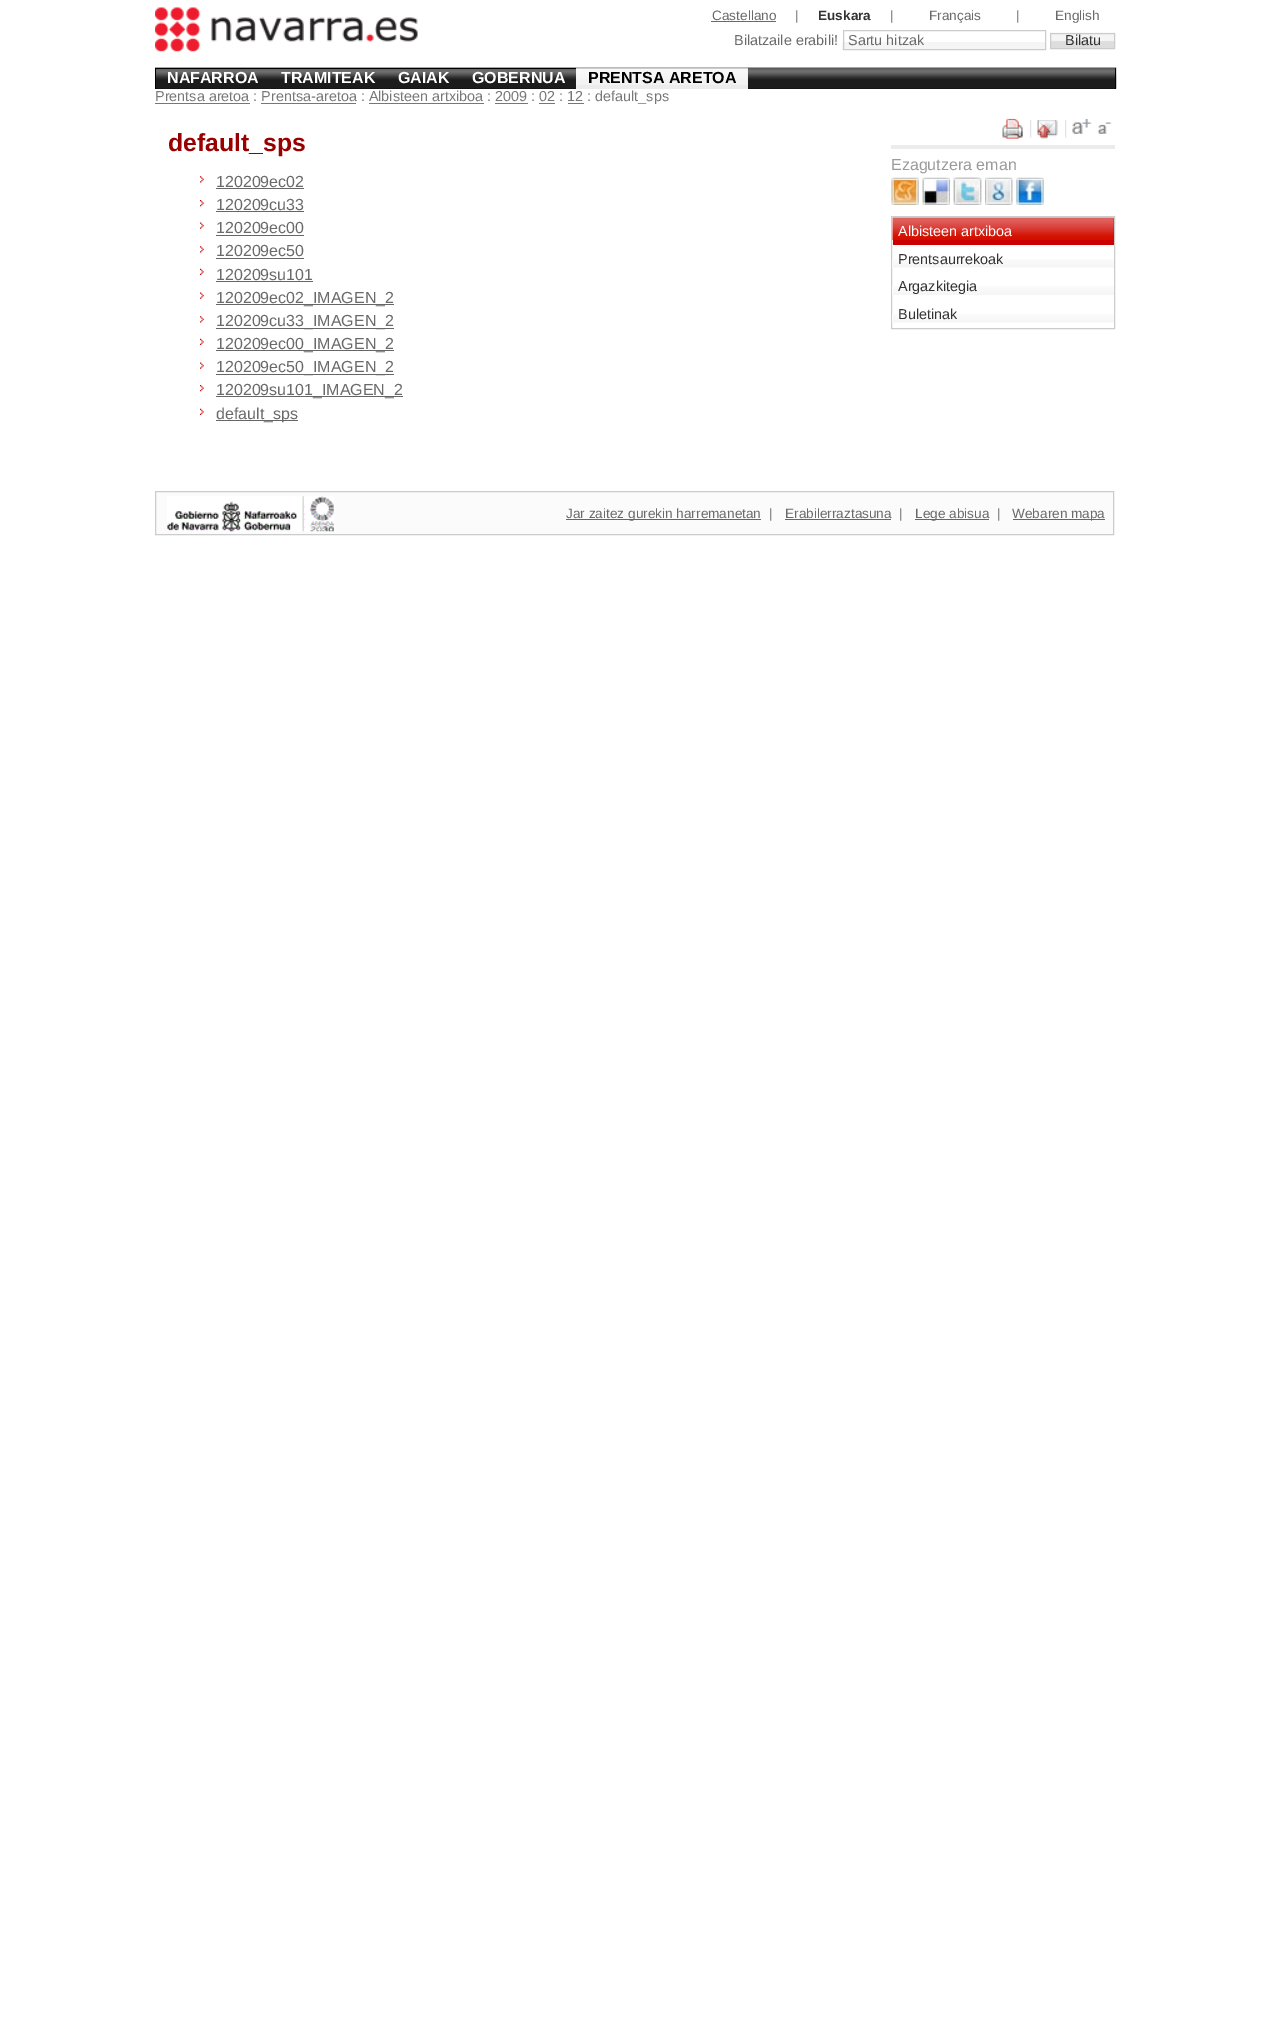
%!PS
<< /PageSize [1270 2030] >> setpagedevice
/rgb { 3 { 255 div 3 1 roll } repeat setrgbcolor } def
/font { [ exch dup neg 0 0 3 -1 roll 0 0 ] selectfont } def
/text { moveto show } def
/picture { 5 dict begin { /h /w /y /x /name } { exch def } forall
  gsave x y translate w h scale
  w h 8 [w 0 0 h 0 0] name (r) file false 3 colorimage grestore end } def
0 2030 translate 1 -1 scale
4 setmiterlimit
255 255 255 rgb
0 0 1270 2030 rectfill
(img_01.rgb) 155 7 263 45 picture
106 106 106 rgb
711 21 65 1 rectfill
245 245 245 rgb
842 42 204 8 rectfill
204 204 204 rgb
843.5 30.5 202 19 rectstroke
(img_02.rgb) 1050 32 65 16 picture
1050.5 33.5 64 15 rectstroke
(img_03.rgb) 155 67 962 22 picture
0 0 0 rgb
1115 68 1 21 rectfill
155 68 421 1 rectfill
155 68 1 21 rectfill
236 236 236 rgb
576 69 172 20 rectfill
(img_04.rgb) 576 67 172 18 picture
204 204 204 rgb
576 68 172 1 rectfill
119 119 119 rgb
155 103 95 1 rectfill
261 103 95 1 rectfill
369 103 115 1 rectfill
495 103 33 1 rectfill
539 103 16 1 rectfill
568 103 16 1 rectfill
(img_05.rgb) 200 176 4 7 picture
102 102 102 rgb
216 188 88 1 rectfill
(img_06.rgb) 200 200 4 7 picture
216 211 88 1 rectfill
(img_07.rgb) 200 222 4 7 picture
216 235 88 1 rectfill
(img_05.rgb) 200 246 4 7 picture
216 258 88 1 rectfill
(img_08.rgb) 200 268 4 7 picture
216 281 97 1 rectfill
(img_09.rgb) 200 292 4 7 picture
216 304 178 1 rectfill
(img_05.rgb) 200 316 4 7 picture
216 328 178 1 rectfill
(img_08.rgb) 200 338 4 7 picture
216 350 178 1 rectfill
(img_07.rgb) 200 362 4 7 picture
216 374 178 1 rectfill
(img_06.rgb) 200 385 4 7 picture
216 396 187 1 rectfill
(img_08.rgb) 200 408 4 7 picture
216 420 82 1 rectfill
(img_10.rgb) 1002 118 30 21 picture
(img_11.rgb) 1037 120 30 19 picture
(img_12.rgb) 1072 118 20 16 picture
(img_13.rgb) 1097 122 15 12 picture
236 236 236 rgb
891 145 224 4 rectfill
(img_14.rgb) 891 177 28 28 picture
(img_15.rgb) 922 177 28 28 picture
(img_16.rgb) 953 177 29 28 picture
(img_17.rgb) 953 177 29 28 picture
(img_18.rgb) 985 177 28 28 picture
(img_19.rgb) 1016 177 28 28 picture
204 204 204 rgb
891.5 216.5 223 112 rectstroke
204 0 0 rgb
893 218 221 27 rectfill
(img_20.rgb) 892 217 222 23 picture
(img_21.rgb) 892 259 222 9 picture
(img_22.rgb) 892 286 222 9 picture
(img_21.rgb) 892 314 222 9 picture
251 251 251 rgb
155.5 491.5 moveto 958 0 rlineto 0 43 rlineto -958 0 rlineto closepath gsave fill grestore
204 204 204 rgb
stroke
(img_23.rgb) 167 496 167 36 picture
102 102 102 rgb
566 519 195 1 rectfill
785 519 106 1 rectfill
915 519 74 1 rectfill
1013 519 92 1 rectfill
/LiberationSans-Regular 13.6 font
106 106 106 rgb
(Castellano) 712 20 text
(|) 795 20 text
/LiberationSans-Bold 13.6 font
51 51 51 rgb
(Euskara) 818 20 text
/LiberationSans-Regular 13.6 font
106 106 106 rgb
(|) 890 20 text
(Français) 929 20 text
(|) 1016 20 text
(English) 1055 20 text
/LiberationSans-Regular 14.4 font
(Bilatzaile erabili!) 734 45 text
(Sartu hitzak) 848 45 text
51 51 51 rgb
(Bilatu) 1065 45 text
/LiberationSans-Bold 16 font
255 255 255 rgb
(NAFARROA) 167 83 text
(TRAMITEAK) 281 83 text
(GAIAK) 398 83 text
(GOBERNUA) 472 83 text
0 0 0 rgb
(PRENTSA ARETOA) 588 83 text
/LiberationSans-Regular 14.4 font
119 119 119 rgb
(Prentsa aretoa : Prentsa-aretoa : Albisteen artxiboa : 2009 : 02 : 12 : default_sps) 155 101 text
/LiberationSans-Bold 24.75 font
153 0 0 rgb
(default_sps) 168 151 text
/LiberationSans-Regular 16 font
106 106 106 rgb
(120209ec02) 216 187 text
(120209cu33) 216 210 text
(120209ec00) 216 233 text
(120209ec50) 216 256 text
(120209su101) 216 280 text
(120209ec02_IMAGEN_2) 216 303 text
(120209cu33_IMAGEN_2) 216 326 text
(120209ec00_IMAGEN_2) 216 349 text
(120209ec50_IMAGEN_2) 216 372 text
(120209su101_IMAGEN_2) 216 395 text
(default_sps) 216 419 text
154 154 154 rgb
(Ezagutzera eman) 891 170 text
/LiberationSans-Regular 14.4 font
255 255 255 rgb
(Albisteen artxiboa) 898 236 text
51 51 51 rgb
(Prentsaurrekoak) 898 264 text
(Argazkitegia) 898 291 text
(Buletinak) 898 319 text
/LiberationSans-Regular 13.6 font
106 106 106 rgb
(Jar zaitez gurekin harremanetan) 566 518 text
769 518 moveto 4 0 (|) ashow
(Erabilerraztasuna) 785 518 text
899 518 moveto 4 0 (|) ashow
(Lege abisua) 915 518 text
997 518 moveto 4 0 (|) ashow
(Webaren mapa) 1012 518 text
showpage
